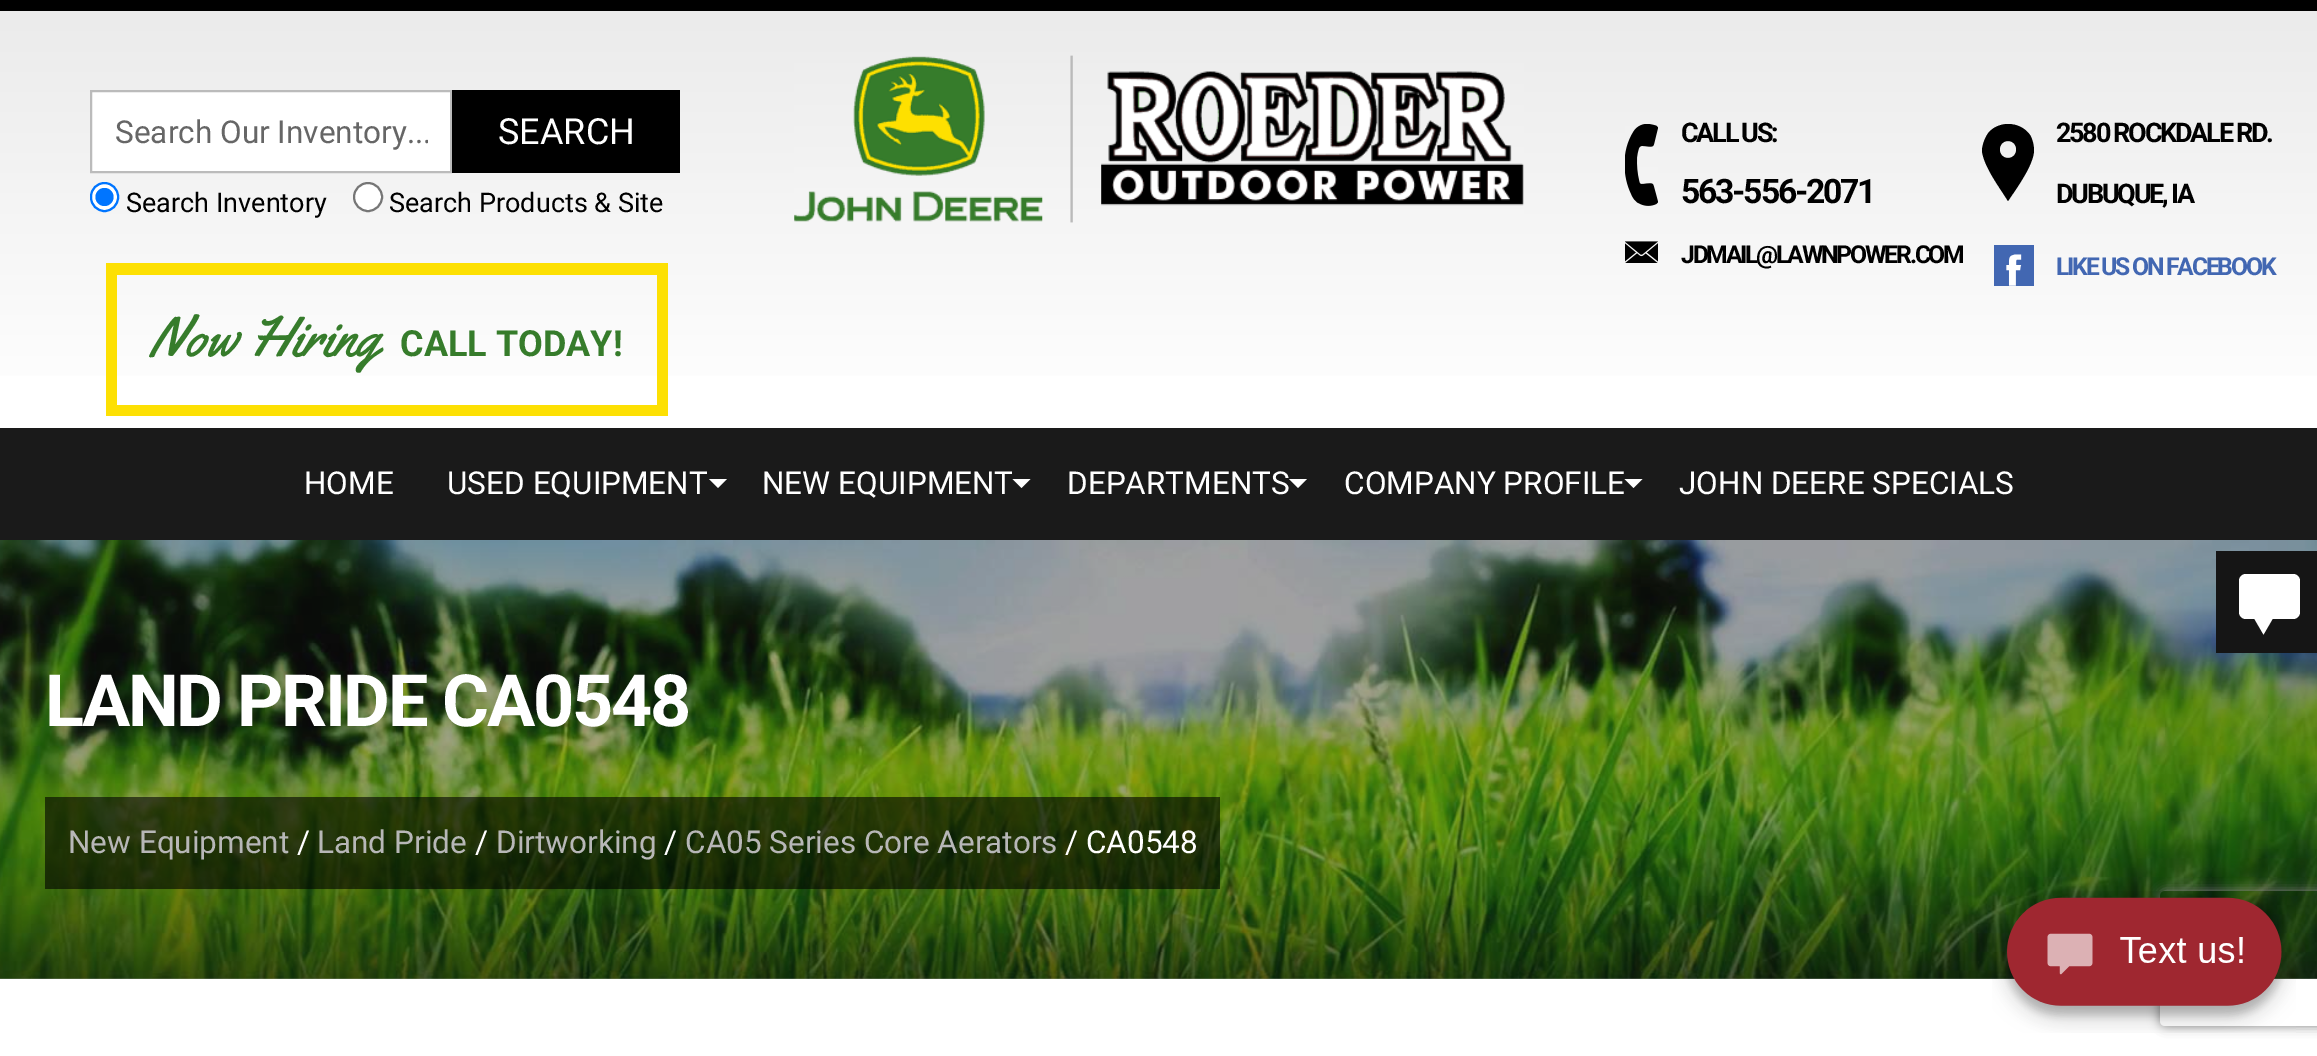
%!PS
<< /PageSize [2317 1056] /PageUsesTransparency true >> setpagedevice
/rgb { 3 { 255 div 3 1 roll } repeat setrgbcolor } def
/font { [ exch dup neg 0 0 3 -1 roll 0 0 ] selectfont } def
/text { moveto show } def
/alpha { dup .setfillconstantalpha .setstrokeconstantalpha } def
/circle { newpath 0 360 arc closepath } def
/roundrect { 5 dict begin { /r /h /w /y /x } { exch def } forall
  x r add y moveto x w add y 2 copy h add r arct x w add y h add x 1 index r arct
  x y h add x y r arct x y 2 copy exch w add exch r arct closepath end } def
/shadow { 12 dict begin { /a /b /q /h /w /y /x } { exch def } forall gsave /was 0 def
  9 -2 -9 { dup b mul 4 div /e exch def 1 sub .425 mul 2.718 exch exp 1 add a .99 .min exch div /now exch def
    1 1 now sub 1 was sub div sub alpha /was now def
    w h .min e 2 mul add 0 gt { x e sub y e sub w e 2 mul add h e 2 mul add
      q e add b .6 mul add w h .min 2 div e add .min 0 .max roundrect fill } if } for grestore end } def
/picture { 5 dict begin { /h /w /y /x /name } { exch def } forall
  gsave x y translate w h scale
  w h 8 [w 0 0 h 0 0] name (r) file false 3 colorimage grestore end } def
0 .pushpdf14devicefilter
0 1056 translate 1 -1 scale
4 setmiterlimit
255 255 255 rgb
0 0 2317 1056 rectfill
gsave 0 11 moveto 2317 0 rlineto 0 365 rlineto -2317 0 rlineto closepath clip newpath
<< /ShadingType 2 /ColorSpace /DeviceRGB /Coords [1159 11 1159 428] /Extend [true true] /Function << /FunctionType 2 /Domain [0 1] /C0 [0.922 0.922 0.922] /C1 [1 1 1] /N 1 >> >> shfill grestore
0 0 0 rgb
0 0 2317 11 rectfill
255 255 255 rgb
91 91 moveto 360 0 rlineto 0 81 rlineto -360 0 rlineto closepath gsave fill grestore
187 187 187 rgb
2 setlinewidth
stroke
0 0 0 rgb
452 90 228 83 rectfill
255 255 255 rgb
91 183 27 28 13.5 roundrect gsave fill grestore
0 117 255 rgb
stroke
104.5 197 9 circle fill
255 255 255 rgb
368 197 14 circle gsave fill grestore
118 118 118 rgb
stroke
253 224 3 rgb
117 263 540 12 rectfill
106 263 11 142 rectfill
657 263 11 142 rectfill
106 405 562 11 rectfill
(img_01.rgb) 794 55 730 168 picture
(img_02.rgb) 1625 124 33 82 picture
(img_03.rgb) 1625 241 33 22 picture
0 0 0 rgb
2008 124 moveto -8 0 -17 4 -21 11 rcurveto -3 5 -5 11 -5 16 rcurveto 2 16 18 37 26 50 rcurveto 8 -12 25 -35 26 -50 rcurveto 0 -5 -1 -11 -4 -16 rcurveto -5 -7 -13 -11 -22 -11 rcurveto closepath 2008 141 moveto 11 0 11 17 0 17 rcurveto -11 0 -11 -17 0 -17 rcurveto closepath fill
(img_04.rgb) 1994 245 40 41 picture
26 26 26 rgb
0 428 2317 112 rectfill
255 255 255 rgb
709 479 moveto 18 0 rlineto -9 9 rlineto closepath fill
1012.5 479 moveto 18 0 rlineto -9 9 rlineto closepath fill
1289 479 moveto 18 0 rlineto -9 9 rlineto closepath fill
1624.5 479 moveto 18 0 rlineto -9 9 rlineto closepath fill
(img_05.rgb) 0 540 2317 439 picture
21 21 21 rgb
2216 551 101 102 rectfill
255 255 255 rgb
2239 574 61 45 7 roundrect fill
2254.5 619 moveto 18 0 rlineto -9 15.5 rlineto closepath fill
0.6 alpha
0 0 0 rgb
45 797 1175 92 rectfill
gsave
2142 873 moveto 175 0 rlineto 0 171 rlineto -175 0 rlineto closepath 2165 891 moveto 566 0 rlineto 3 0 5 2 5 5 rcurveto 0 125 rlineto 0 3 -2 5 -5 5 rcurveto -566 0 rlineto -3 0 -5 -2 -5 -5 rcurveto 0 -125 rlineto 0 -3 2 -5 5 -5 rcurveto closepath eoclip newpath
1 alpha
128 128 128 rgb
2160 891 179 135 5 5.5 1 shadow
grestore
1 alpha
(img_06.rgb) 1992 891 304 142 picture
gsave
115 115 313 36 rectclip
/Roboto-Regular 31.5 font
102 102 102 rgb
(Search Our Inventory...) 115 143 text
grestore
/Roboto-Regular 36 font
255 255 255 rgb
(SEARCH) 498 144 text
/Roboto-Regular 27 font
0 0 0 rgb
(Search Inventory) 126 212 text
(Search Products & Site) 389 212 text
/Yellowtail-Regular 56.25 font
54 124 43 rgb
(Now Hiring) 150 356 text
/Roboto-Bold 36 font
(CALL TODAY!) 400 356 text
/Roboto-Bold 27 font
0 0 0 rgb
1681 142 moveto -2.25 0 (CALL US:) ashow
/Roboto-Bold 33.75 font
1681 203 moveto -2.25 0 (563-556-2071) ashow
/Roboto-Bold 24.75 font
1681 263 moveto -2.25 0 (JDMAIL@LAWNPOWER.COM) ashow
/Roboto-Bold 27 font
2056 142 moveto -2.25 0 (2580 ROCKDALE RD.) ashow
2056 203 moveto -2.25 0 (DUBUQUE, IA) ashow
/Roboto-Bold 24.75 font
66 103 178 rgb
2056 275 moveto -2.25 0 (LIKE US ON FACEBOOK) ashow
/Roboto-Regular 31.5 font
255 255 255 rgb
(HOME) 304 494 text
(USED EQUIPMENT) 447 494 text
(NEW EQUIPMENT) 762 494 text
(DEPARTMENTS) 1067 494 text
(COMPANY PROFILE) 1344 494 text
(JOHN DEERE SPECIALS) 1679 494 text
/Roboto-Bold 72 font
45 726 moveto -2.25 0 (LAND PRIDE CA0548) ashow
/Roboto-Regular 31.5 font
183 183 183 rgb
(New Equipment) 68 853 text
255 255 255 rgb
(/) 297 853 text
183 183 183 rgb
(Land Pride) 317 853 text
255 255 255 rgb
(/) 475 853 text
183 183 183 rgb
(Dirtworking) 496 853 text
255 255 255 rgb
(/) 664 853 text
183 183 183 rgb
(CA05 Series Core Aerators) 685 853 text
255 255 255 rgb
(/ CA0548) 1065 853 text
.poppdf14devicefilter showpage
